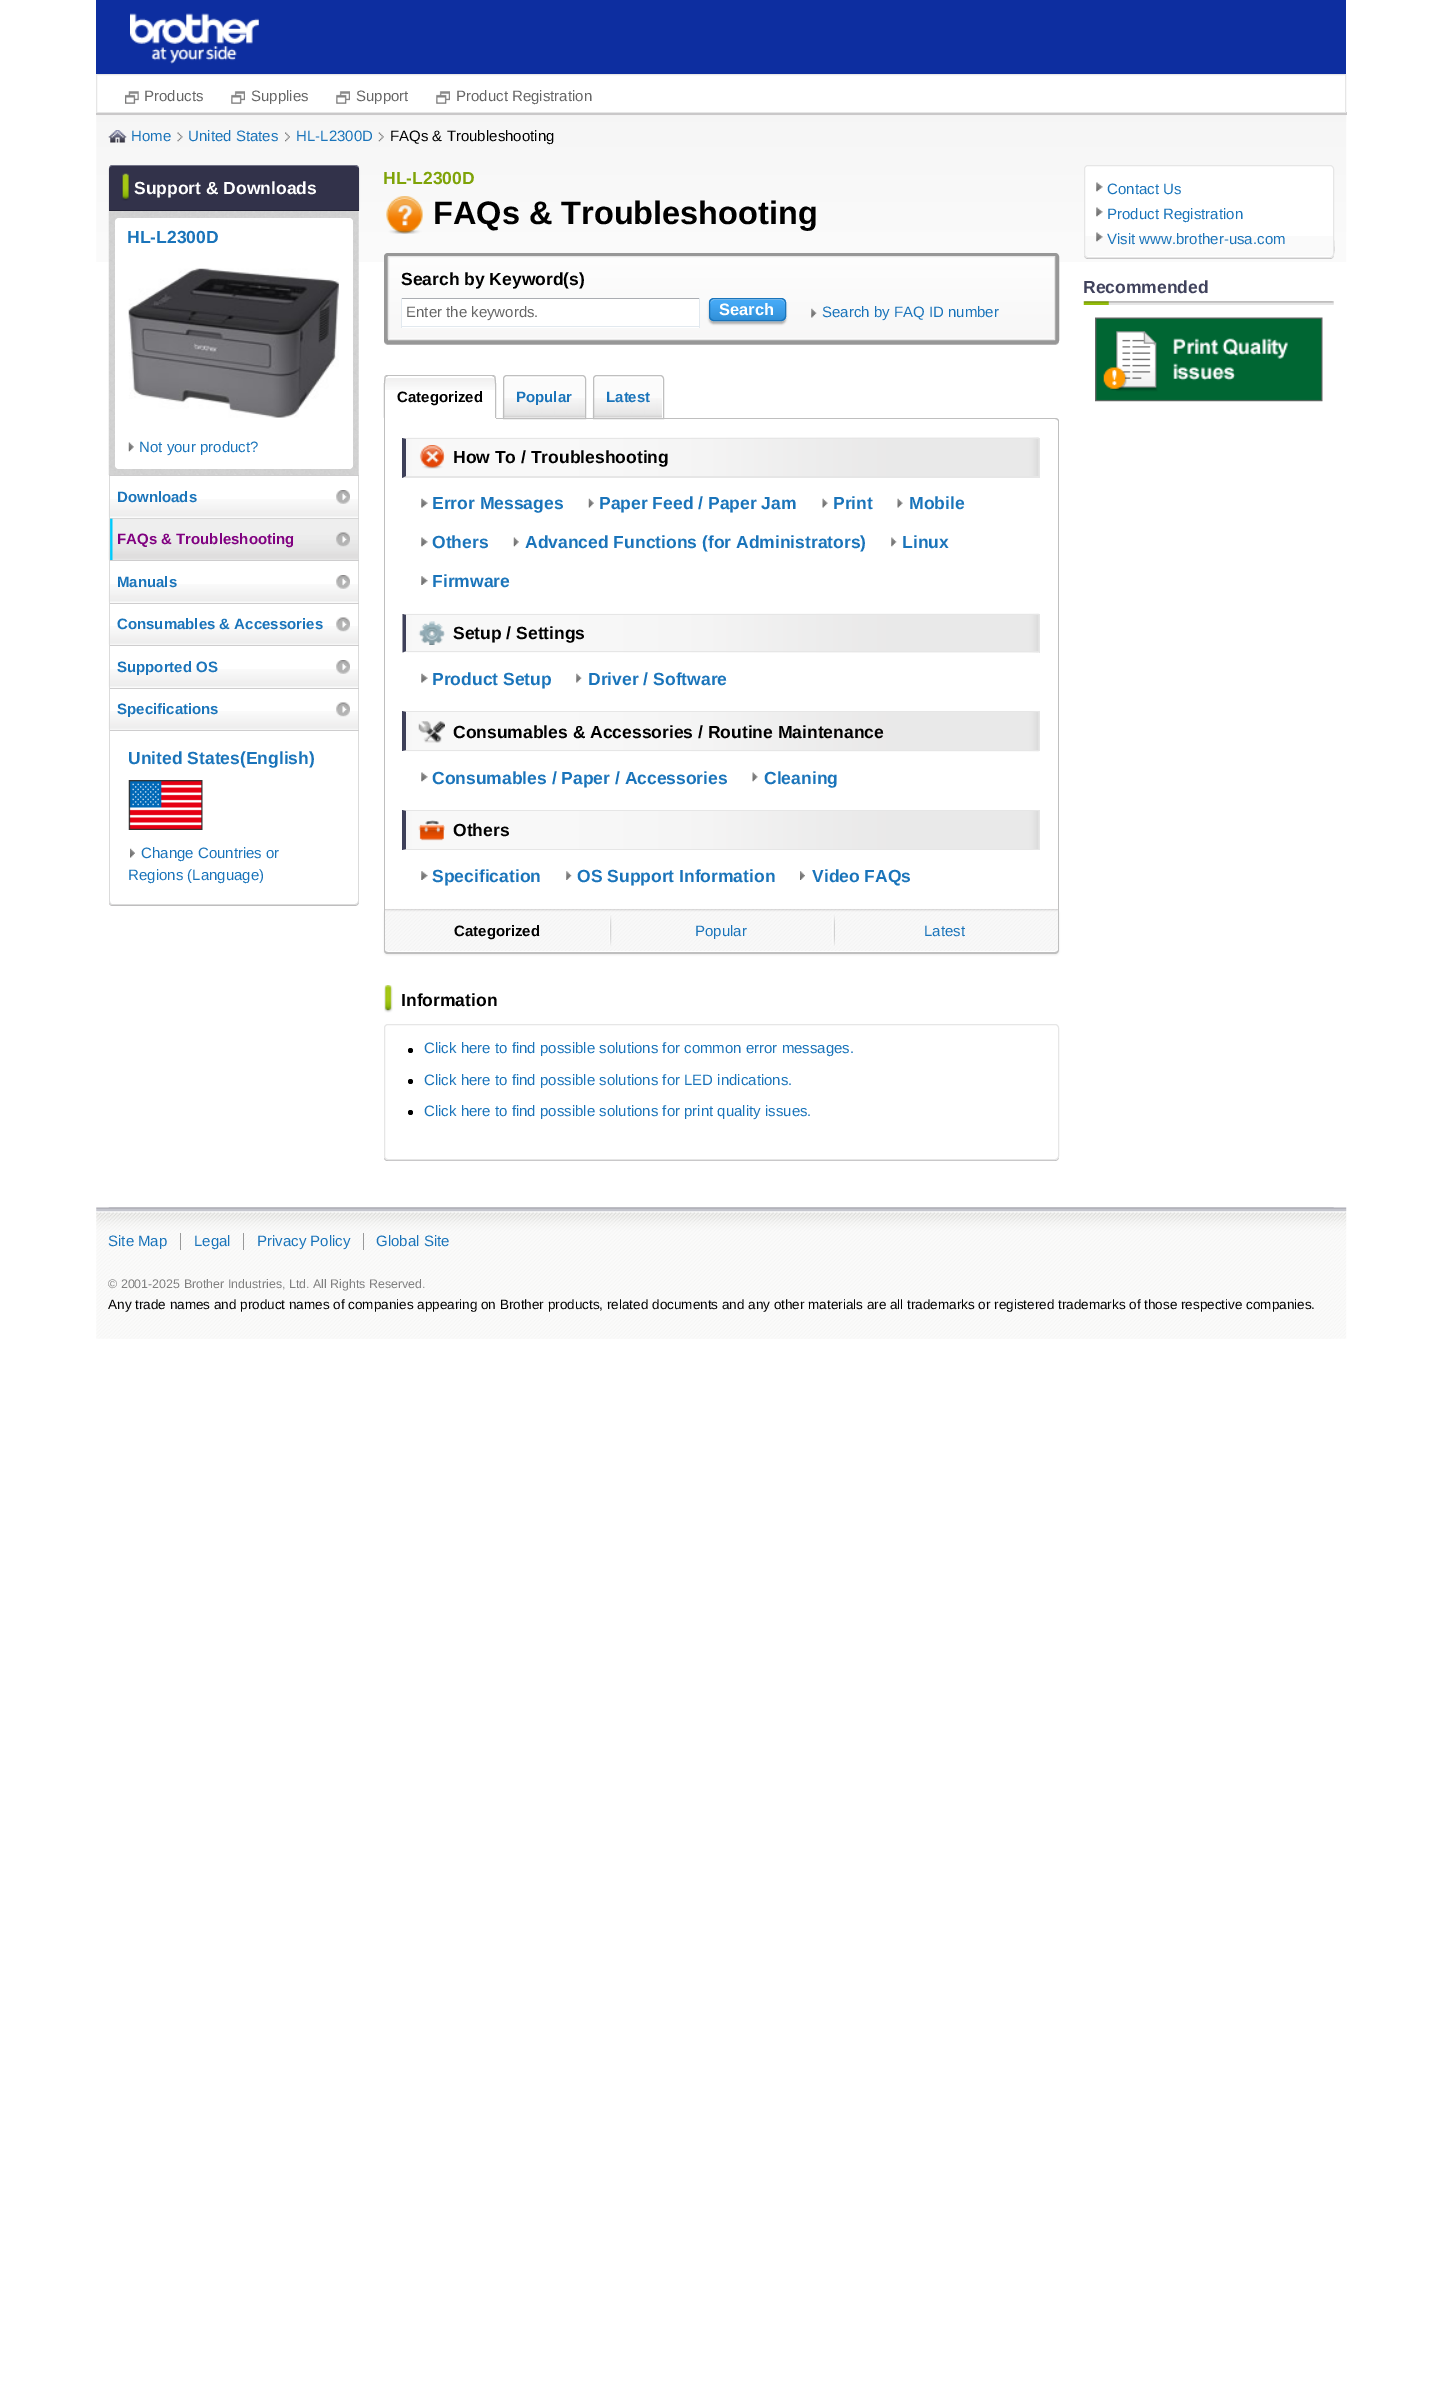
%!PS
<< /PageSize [1441 2398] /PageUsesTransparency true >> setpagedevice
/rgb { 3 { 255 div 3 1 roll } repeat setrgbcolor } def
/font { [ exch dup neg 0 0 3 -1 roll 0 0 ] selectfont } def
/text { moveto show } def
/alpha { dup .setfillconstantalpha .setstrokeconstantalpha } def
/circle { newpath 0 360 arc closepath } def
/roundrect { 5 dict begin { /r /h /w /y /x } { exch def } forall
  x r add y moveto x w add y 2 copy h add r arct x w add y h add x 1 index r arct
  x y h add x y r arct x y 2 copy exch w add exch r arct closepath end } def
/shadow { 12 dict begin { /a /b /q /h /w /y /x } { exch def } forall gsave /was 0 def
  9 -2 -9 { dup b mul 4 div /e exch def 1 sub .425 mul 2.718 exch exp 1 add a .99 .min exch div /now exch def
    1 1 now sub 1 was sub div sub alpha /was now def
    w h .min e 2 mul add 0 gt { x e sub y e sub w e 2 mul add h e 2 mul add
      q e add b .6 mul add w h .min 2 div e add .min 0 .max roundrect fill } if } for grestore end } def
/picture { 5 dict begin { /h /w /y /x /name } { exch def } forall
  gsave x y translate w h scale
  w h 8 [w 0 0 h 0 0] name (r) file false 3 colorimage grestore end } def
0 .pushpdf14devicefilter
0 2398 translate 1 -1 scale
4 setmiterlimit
255 255 255 rgb
0 0 1441 2398 rectfill
13 46 160 rgb
96 0 1250 74 rectfill
(img_01.rgb) 130 13 129 51 picture
202 200 201 rgb
96 112 1251 3 rectfill
190 189 190 rgb
96 75 moveto 0 39 rlineto 1250 0 rlineto 0 -2 rlineto -1250 0 rlineto closepath fill
230 230 230 rgb
96.5 74.5 1249 38 rectstroke
(img_02.rgb) 125 91 14 13 picture
(img_03.rgb) 231 91 14 13 picture
(img_03.rgb) 336 91 14 13 picture
(img_03.rgb) 436 91 14 13 picture
(img_04.rgb) 96 115 1251 147 picture
(img_05.rgb) 108 130 19 13 picture
(img_06.rgb) 177 132 6 10 picture
(img_07.rgb) 285 132 5 10 picture
(img_08.rgb) 378 132 6 10 picture
0 0 0 rgb
109 166 250 47 4 0.5 0.2 shadow
50 50 74 rgb
113 165 moveto 242 0 rlineto 2 0 4 2 4 4 rcurveto 0 42 rlineto -250 0 rlineto 0 -42 rlineto 0 -2 2 -4 4 -4 rcurveto closepath fill
115 116 136 rgb
112 165 moveto 243 0 rlineto 2 0 3 1 4 3 rcurveto -1 -1 -2 -2 -4 -2 rcurveto -243 0 rlineto -2 0 -3 1 -3 3 rcurveto 0 -2 1 -4 3 -4 rcurveto closepath fill
35 35 52 rgb
109 210 250 1 rectfill
(img_09.rgb) 121 173 9 28 picture
(img_10.rgb) 108 211 251 264 picture
255 255 255 rgb
115 218 238 251 4 roundrect fill
(img_11.rgb) 128 268 211 150 picture
(img_12.rgb) 128 442 6 10 picture
206 205 206 rgb
109 475 250 1 rectfill
(img_13.rgb) 108 499 250 19 picture
219 219 219 rgb
358 476 1 43 rectfill
206 205 206 rgb
109 518 250 1 rectfill
219 219 219 rgb
109 476 1 43 rectfill
(img_14.rgb) 336 490 14 14 picture
(img_15.rgb) 108 518 251 42 picture
358 519 1 212 rectfill
206 205 206 rgb
109 560 250 1 rectfill
219 219 219 rgb
109 519 1 42 rectfill
(img_16.rgb) 336 532 14 15 picture
(img_13.rgb) 108 584 250 19 picture
206 205 206 rgb
109 603 250 1 rectfill
219 219 219 rgb
109 561 1 43 rectfill
(img_14.rgb) 336 575 14 14 picture
(img_17.rgb) 108 626 250 19 picture
206 205 206 rgb
109 645 250 1 rectfill
219 219 219 rgb
109 604 1 42 rectfill
(img_18.rgb) 336 617 14 15 picture
(img_13.rgb) 108 669 250 19 picture
206 205 206 rgb
109 688 250 1 rectfill
219 219 219 rgb
109 646 1 43 rectfill
(img_14.rgb) 336 660 14 14 picture
(img_17.rgb) 108 711 250 19 picture
206 205 206 rgb
109 730 250 1 rectfill
219 219 219 rgb
109 689 1 42 rectfill
(img_18.rgb) 336 702 14 15 picture
190 189 190 rgb
109 903 moveto 0 2 2 3 4 3 rcurveto 242 0 rlineto 2 0 4 -2 4 -4 rcurveto 0 -169 rlineto 0 168 rlineto 0 2 -2 4 -4 4 rcurveto -243 0 rlineto -1 0 -2 -1 -3 -2 rcurveto closepath fill
219 219 219 rgb
109 731 moveto 250 0 rlineto 0 170 rlineto 0 2 -2 4 -4 4 rcurveto -243 0 rlineto -2 0 -3 -2 -3 -4 rcurveto closepath 110 731 moveto 248 0 rlineto 0 170 rlineto 0 2 -2 3 -3 3 rcurveto -243 0 rlineto -1 0 -2 -1 -2 -3 rcurveto closepath eofill
(img_19.rgb) 128 780 75 50 picture
(img_20.rgb) 130 848 5 10 picture
(img_21.rgb) 386 196 37 38 picture
190 189 190 rgb
384 341 moveto 0 2 2 4 4 4 rcurveto 667 0 rlineto 2 0 4 -2 4 -4 rcurveto 0 -84 rlineto 0 83 rlineto 0 2 -2 4 -4 4 rcurveto -667 0 rlineto -2 0 -3 -1 -4 -3 rcurveto closepath fill
151 151 151 rgb
4 setlinewidth
386 255 671 87 2 roundrect stroke
(img_22.rgb) 387 256 667 83 picture
230 230 230 rgb
1 setlinewidth
388.5 256.5 666 83 rectstroke
255 255 255 rgb
402 299 297 29 rectfill
170 173 178 rgb
401 298 299 1 rectfill
226 233 239 rgb
699 298 1 30 rectfill
401 326 299 1 rectfill
401 298 1 30 rectfill
0 0 0 rgb
709 300 77 24 5 1 0.3 shadow
(img_23.rgb) 708 298 79 24 picture
0.4 alpha
255 255 255 rgb
714 300 moveto 67 0 rlineto 2 0 4 2 4 4 rcurveto 0 -8 -10 -5 -15 -5 rcurveto -45 0 rlineto -5 0 -15 -3 -15 5 rcurveto 0 -2 2 -4 4 -4 rcurveto closepath fill
1 alpha
26 116 186 rgb
709.5 298.5 76 22 4.5 roundrect stroke
(img_24.rgb) 811 308 6 10 picture
191 191 191 rgb
384 418 moveto 671 0 rlineto 2 0 4 1 4 3 rcurveto 0 488 rlineto -675 0 rlineto closepath 385 419 moveto 670 0 rlineto 1 0 3 1 3 2 rcurveto 0 488 rlineto -673 0 rlineto closepath eofill
255 255 255 rgb
388 375 moveto 104 0 rlineto 2 0 4 2 4 4 rcurveto 0 40 rlineto -112 0 rlineto 0 -40 rlineto 0 -2 2 -4 4 -4 rcurveto closepath fill
(img_25.rgb) 384 376 112 14 picture
388 378 moveto 104 0 rlineto 2 0 3 1 3 2 rcurveto 0 -2 rlineto 0 -1 -1 -2 -3 -2 rcurveto -104 0 rlineto -2 0 -3 1 -3 2 rcurveto 0 2 rlineto 0 -1 1 -2 3 -2 rcurveto closepath fill
191 191 191 rgb
388 375 moveto -1 0 -2 0 -3 1 rcurveto 1 1 rlineto 2 -1 rlineto 104 0 rlineto 2 1 rlineto 1 -1 rlineto -1 -1 -2 -1 -3 -1 rcurveto closepath fill
495 376 moveto 2 3 1 37 1 42 rcurveto -1 0 rlineto 0 -6 1 -39 -1 -41 rcurveto closepath fill
385 376 moveto -2 3 -1 37 -1 42 rcurveto 1 0 rlineto 0 -6 -1 -39 1 -41 rcurveto closepath fill
251 251 251 rgb
507 375 moveto 75 0 rlineto 2 0 4 2 4 4 rcurveto 0 40 rlineto -83 0 rlineto 0 -40 rlineto 0 -2 2 -4 4 -4 rcurveto closepath fill
(img_26.rgb) 502 398 83 20 picture
255 255 255 rgb
506 378 moveto 76 0 rlineto 2 0 3 1 3 2 rcurveto 0 -7 -10 -4 -15 -4 rcurveto -51 0 rlineto -5 0 -15 -3 -15 4 rcurveto 0 -1 1 -2 2 -2 rcurveto closepath fill
191 191 191 rgb
507 375.5 moveto 75 0 rlineto 2 0 3.5 1.5 3.5 3.5 rcurveto 0 39.5 rlineto -82 0 rlineto 0 -39.5 rlineto 0 -2 1.5 -3.5 3.5 -3.5 rcurveto closepath stroke
251 251 251 rgb
597 375 moveto 63 0 rlineto 2 0 4 2 4 4 rcurveto 0 40 rlineto -71 0 rlineto 0 -40 rlineto 0 -2 2 -4 4 -4 rcurveto closepath fill
(img_27.rgb) 592 398 70 20 picture
255 255 255 rgb
596 378 moveto 64 0 rlineto 1 0 2 1 2 2 rcurveto 0 38 rlineto 1 0 rlineto 0 -40 rlineto 0 -1 -1 -2 -3 -2 rcurveto -64 0 rlineto -1 0 -2 1 -2 2 rcurveto 0 2 rlineto 0 -1 1 -2 2 -2 rcurveto closepath fill
191 191 191 rgb
597 375.5 moveto 63 0 rlineto 2 0 3.5 1.5 3.5 3.5 rcurveto 0 39.5 rlineto -70 0 rlineto 0 -39.5 rlineto 0 -2 1.5 -3.5 3.5 -3.5 rcurveto closepath stroke
384 418 1 1 rectfill
246 246 246 rgb
406 439 633 37 rectfill
(img_28.rgb) 407 437 632 39 picture
230 230 230 rgb
402 438 moveto 638 0 rlineto -1 1 rlineto -633 0 rlineto closepath fill
1039 438 1 40 rectfill
1040 478 moveto -638 0 rlineto 4 -2 rlineto 633 0 rlineto closepath fill
62 64 89 rgb
402 478 moveto 0 -40 rlineto 4 1 rlineto 0 37 rlineto closepath fill
(img_29.rgb) 419 445 26 24 picture
(img_30.rgb) 421 498 7 10 picture
(img_31.rgb) 588 498 6 10 picture
(img_32.rgb) 822 498 6 10 picture
(img_32.rgb) 897 498 6 10 picture
(img_33.rgb) 421 537 7 10 picture
(img_34.rgb) 513 537 6 10 picture
(img_35.rgb) 891 537 6 10 picture
(img_36.rgb) 421 576 7 9 picture
246 246 246 rgb
406 615 633 36 rectfill
(img_37.rgb) 407 613 632 40 picture
230 230 230 rgb
402 614 moveto 638 0 rlineto -1 1 rlineto -633 0 rlineto closepath fill
1039 614 1 39 rectfill
1040 652 moveto -638 0 rlineto 4 -1 rlineto 633 0 rlineto closepath fill
62 64 89 rgb
402.5 652.5 moveto 0 -38.5 rlineto 3.5 1 rlineto 0 36 rlineto closepath fill
(img_38.rgb) 418 621 27 24 picture
(img_30.rgb) 421 673 7 10 picture
(img_39.rgb) 576 673 6 10 picture
246 246 246 rgb
406 713 633 37 rectfill
(img_40.rgb) 407 712 632 40 picture
230 230 230 rgb
402 711 moveto 638 0 rlineto -1 1 rlineto -633 0 rlineto closepath fill
1039 711 1 40 rectfill
1040 751 moveto -638 0 rlineto 4 -1 rlineto 633 0 rlineto closepath fill
62 64 89 rgb
402 751 moveto 0 -40 rlineto 4 1 rlineto 0 38 rlineto closepath fill
(img_41.rgb) 418 721 27 22 picture
(img_33.rgb) 421 772 7 10 picture
(img_42.rgb) 752 772 6 10 picture
246 246 246 rgb
406 811 633 38 rectfill
(img_43.rgb) 407 811 632 38 picture
230 230 230 rgb
402 810 moveto 638 0 rlineto -1 1 rlineto -633 0 rlineto closepath fill
1039 810 1 40 rectfill
1040 850 moveto -638 0 rlineto 4 -1 rlineto 633 0 rlineto closepath fill
62 64 89 rgb
402 850 moveto 0 -40 rlineto 4 1 rlineto 0 38 rlineto closepath fill
(img_44.rgb) 418 820 27 21 picture
(img_36.rgb) 421 871 7 9 picture
(img_45.rgb) 566 871 6 9 picture
(img_46.rgb) 800 871 5 9 picture
237 236 236 rgb
384 910 675 45 4 1 1 shadow
(img_47.rgb) 384 909 675 44 picture
255 255 255 rgb
385 949 moveto 0 1 rlineto 0 2 1 3 3 3 rcurveto 668 0 rlineto 1 0 2 -1 2 -3 rcurveto 0 -1 rlineto 0 1 -2 2 -3 2 rcurveto -667 0 rlineto -2 0 -3 -1 -3 -2 rcurveto closepath fill
191 191 191 rgb
384 909 moveto 675 0 rlineto 0 41 rlineto 0 2 -2 4 -4 4 rcurveto -667 0 rlineto -3 0 -4 -2 -4 -4 rcurveto closepath 385 909 moveto 673 0 rlineto 0 41 rlineto 0 1 -2 2 -3 2 rcurveto -667 0 rlineto -2 0 -3 -1 -3 -2 rcurveto closepath eofill
(img_48.rgb) 609 915 3 31 picture
(img_49.rgb) 832 915 3 31 picture
(img_50.rgb) 384 985 9 28 picture
190 189 190 rgb
384 1158 moveto 0 2 2 3 4 3 rcurveto 667 0 rlineto 2 0 4 -2 4 -4 rcurveto 0 -129 rlineto 0 128 rlineto 0 2 -2 4 -4 4 rcurveto -667 0 rlineto -2 0 -3 -1 -4 -2 rcurveto closepath fill
255 255 255 rgb
384.5 1024.5 674 135 3.5 roundrect gsave fill grestore
230 230 230 rgb
stroke
0 0 0 rgb
410.5 1050.5 2.5 circle fill
410.5 1081.5 2.5 circle fill
410.5 1112.5 2.5 circle fill
190 189 190 rgb
1084 255 moveto 0 2 2 4 4 4 rcurveto 242 0 rlineto 2 0 4 -2 4 -4 rcurveto 0 -86 rlineto 0 71 rlineto 0 7 2 17 -4 18 rcurveto -242 0 rlineto -2 -1 -3 -1 -4 -3 rcurveto closepath fill
255 255 255 rgb
1084 165 250 93 4 roundrect fill
250 250 250 rgb
1084 236 249 20 rectfill
230 230 230 rgb
1084.5 165.5 249 92 3.5 roundrect stroke
(img_33.rgb) 1096 182 7 10 picture
(img_33.rgb) 1096 207 7 10 picture
(img_51.rgb) 1096 232 7 10 picture
(img_52.rgb) 1083 301 251 4 picture
(img_53.rgb) 1095 317 228 85 picture
(img_54.rgb) 96 1207 1251 132 picture
(img_55.rgb) 108 1207 1226 132 picture
153 153 153 rgb
180 1233 1 17 rectfill
243 1233 1 17 rectfill
363 1233 1 17 rectfill
/LiberationSans-Regular 15 font
102 102 102 rgb
(Products) 144 101 text
(Supplies) 251 101 text
(Support) 356 101 text
(Product Registration) 456 101 text
26 116 186 rgb
(Home) 131 141 text
(United States) 188 141 text
(HL-L2300D) 296 141 text
0 0 0 rgb
(FAQs & Troubleshooting) 390 141 text
/LiberationSans-Bold 17.5 font
255 255 255 rgb
(Support & Downloads) 134 194 text
26 116 186 rgb
(HL-L2300D) 127 243 text
/LiberationSans-Regular 15 font
(Not your product?) 139 452 text
/LiberationSans-Bold 15 font
(Downloads) 117 502 text
128 0 128 rgb
(FAQs & Troubleshooting) 117 544 text
26 116 186 rgb
(Manuals) 117 587 text
(Consumables & Accessories) 117 629 text
(Supported OS) 117 672 text
(Specifications) 117 714 text
/LiberationSans-Bold 17.5 font
(United States\(English\)) 128 764 text
/LiberationSans-Regular 15 font
(Change Countries or) 141 858 text
(Regions \(Language\)) 128 880 text
/LiberationSans-Bold 17.5 font
127 163 8 rgb
(HL-L2300D) 383 184 text
/LiberationSans-Bold 32.5 font
0 0 0 rgb
(FAQs & Troubleshooting) 433 224 text
/LiberationSans-Bold 17.5 font
(Search by Keyword\(s\)) 401 285 text
/LiberationSans-Regular 15 font
102 102 102 rgb
(Enter the keywords.) 406 317 text
/LiberationSans-Bold 16.5 font
255 255 255 rgb
(Search) 719 315 text
/LiberationSans-Regular 15 font
26 116 186 rgb
(Search by FAQ ID number) 822 317 text
/LiberationSans-Bold 15 font
0 0 0 rgb
(Categorized) 397 402 text
26 116 186 rgb
(Popular) 516 402 text
(Latest) 606 402 text
/LiberationSans-Bold 17.5 font
0 0 0 rgb
(How To / Troubleshooting) 453 463 text
26 116 186 rgb
(Error Messages) 432 509 text
(Paper Feed / Paper Jam) 599 509 text
(Print) 833 509 text
(Mobile) 909 509 text
(Others) 432 548 text
(Advanced Functions \(for Administrators\)) 525 548 text
(Linux) 902 548 text
(Firmware) 432 587 text
0 0 0 rgb
(Setup / Settings) 453 639 text
26 116 186 rgb
(Product Setup) 432 685 text
(Driver / Software) 588 685 text
0 0 0 rgb
(Consumables & Accessories / Routine Maintenance) 453 738 text
26 116 186 rgb
(Consumables / Paper / Accessories) 432 784 text
(Cleaning) 764 784 text
0 0 0 rgb
(Others) 453 836 text
26 116 186 rgb
(Specification) 432 882 text
(OS Support Information) 577 882 text
(Video FAQs) 812 882 text
/LiberationSans-Bold 15 font
0 0 0 rgb
(Categorized) 454 936 text
/LiberationSans-Regular 15 font
26 116 186 rgb
(Popular) 695 936 text
(Latest) 924 936 text
/LiberationSans-Bold 17.5 font
0 0 0 rgb
(Information) 401 1006 text
/LiberationSans-Regular 15 font
26 116 186 rgb
(Click here to find possible solutions for common error messages.) 424 1053 text
(Click here to find possible solutions for LED indications.) 424 1085 text
(Click here to find possible solutions for print quality issues.) 424 1116 text
(Contact Us) 1107 194 text
(Product Registration) 1107 219 text
(Visit www.brother-usa.com) 1107 244 text
/LiberationSans-Bold 17.5 font
64 66 92 rgb
(Recommended) 1083 293 text
/LiberationSans-Regular 15 font
26 116 186 rgb
(Site Map) 108 1246 text
(Legal) 194 1246 text
(Privacy Policy) 257 1246 text
(Global Site) 376 1246 text
/LiberationSans-Regular 12.45 font
128 128 128 rgb
(© 2001-2025 Brother Industries, Ltd. All Rights Reserved.) 108 1288 text
/LiberationSans-Regular 13.5 font
0 0 0 rgb
(Any trade names and product names of companies appearing on Brother products, related documents and any other materials are all trademarks or registered trademarks of those respective companies.) 108 1309 text
.poppdf14devicefilter showpage
